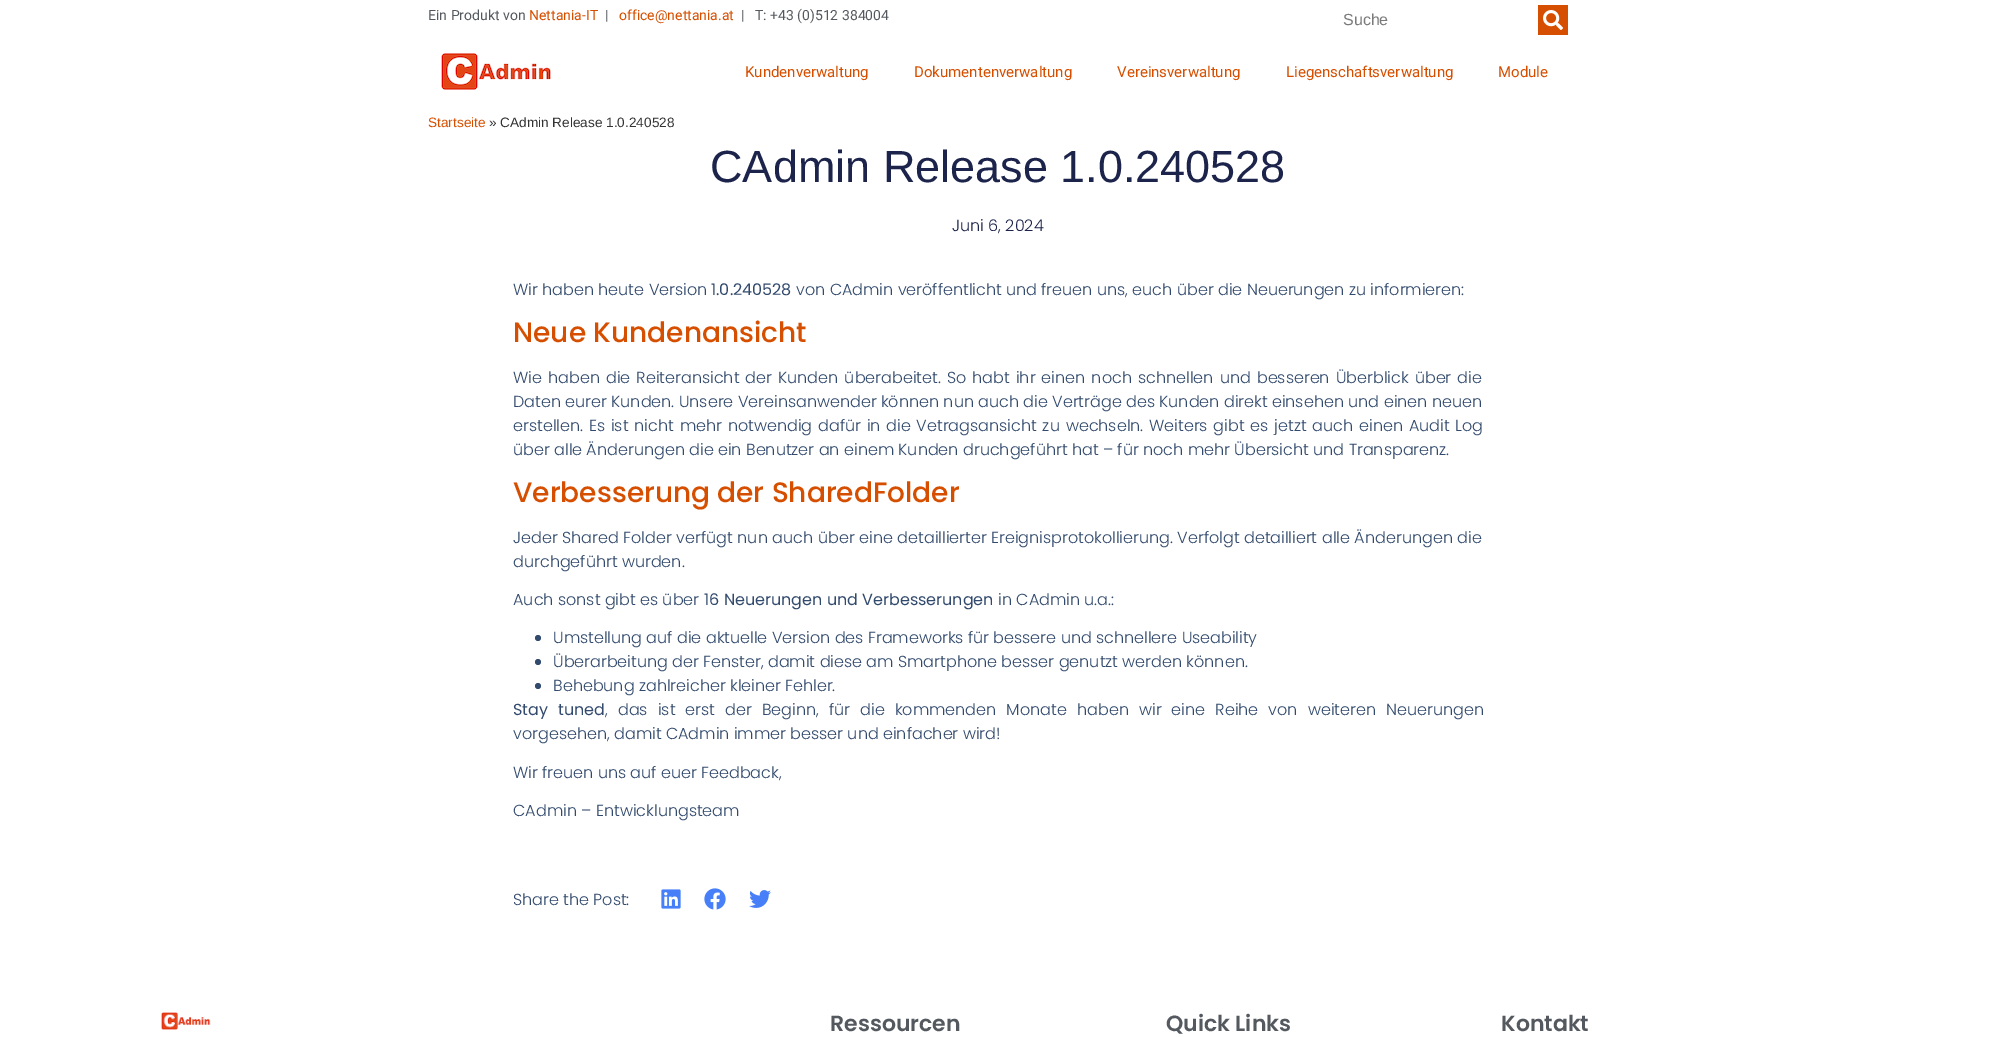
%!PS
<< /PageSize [1996 1037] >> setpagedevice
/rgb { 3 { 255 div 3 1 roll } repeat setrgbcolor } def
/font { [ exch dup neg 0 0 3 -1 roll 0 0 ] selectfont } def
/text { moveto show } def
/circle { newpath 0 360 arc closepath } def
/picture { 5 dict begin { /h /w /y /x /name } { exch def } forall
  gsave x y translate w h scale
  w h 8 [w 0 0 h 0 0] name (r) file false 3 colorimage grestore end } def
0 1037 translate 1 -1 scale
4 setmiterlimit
255 255 255 rgb
0 0 1996 1037 rectfill
214 79 0 rgb
1538 5 30 30 rectfill
(img_01.rgb) 1543 10 20 20 picture
(img_02.rgb) 441 53 110 37 picture
50 74 109 rgb
538 638 3 circle fill
538 662 3 circle fill
538 686 3 circle fill
(img_03.rgb) 661 889 20 20 picture
(img_04.rgb) 704 888 22 22 picture
(img_05.rgb) 749 890 22 18 picture
(img_06.rgb) 161 1012 50 18 picture
/Roboto-Regular 14 font
84 89 95 rgb
(Ein Produkt von) 428 20 text
214 79 0 rgb
(Nettania-IT) 529 20 text
84 89 95 rgb
(|) 605 20 text
214 79 0 rgb
(office@nettania.at) 619 20 text
84 89 95 rgb
(|   T: +43 \(0\)512 384004) 741 20 text
/LiberationSans-Regular 16 font
122 122 122 rgb
(Suche) 1343 25 text
/Roboto-Regular 15 font
214 79 0 rgb
(Kundenverwaltung) 745 77 text
(Dokumentenverwaltung) 914 77 text
(Vereinsverwaltung) 1117 77 text
(Liegenschaftsverwaltung) 1286 77 text
(Module) 1498 77 text
/LiberationSans-Regular 13.6 font
(Startseite) 428 127 text
51 51 51 rgb
(» CAdmin Release 1.0.240528) 489 127 text
/LiberationSans-Regular 45 font
28 36 75 rgb
(CAdmin Release 1.0.240528) 710 182 text
/Poppins-Light 16 font
(Juni 6, 2024) 952 231 text
50 74 109 rgb
(Wir haben heute Version) 513 295 text
/Poppins-Regular 16 font
(1.0.240528) 711 295 text
/Poppins-Light 16 font
(von CAdmin veröffentlicht und freuen uns, euch über die Neuerungen zu informieren:) 796 295 text
/Poppins-Medium 28 font
214 79 0 rgb
(Neue Kundenansicht) 513 342 text
/Poppins-Light 16 font
50 74 109 rgb
513 383 moveto 1.75 0 32 (Wie haben die Reiteransicht der Kunden überabeitet. So habt ihr einen noch schnellen und besseren Überblick über die) widthshow
(Daten eurer Kunden. Unsere Vereinsanwender können nun auch die Verträge des Kunden direkt einsehen und einen neuen) 513 407 text
513 431 moveto 1.5 0 32 (erstellen. Es ist nicht mehr notwendig dafür in die Vetragsansicht zu wechseln. Weiters gibt es jetzt auch einen Audit Log) widthshow
(über alle Änderungen die ein Benutzer an einem Kunden druchgeführt hat – für noch mehr Übersicht und Transparenz.) 513 455 text
/Poppins-Medium 28 font
214 79 0 rgb
(Verbesserung der SharedFolder) 513 502 text
/Poppins-Light 16 font
50 74 109 rgb
513 543 moveto 0.25 0 32 (Jeder Shared Folder verfügt nun auch über eine detaillierter Ereignisprotokollierung. Verfolgt detailliert alle Änderungen die) widthshow
(durchgeführt wurden.) 513 567 text
(Auch sonst gibt es über) 513 605 text
/Poppins-Regular 16 font
(16 Neuerungen und Verbesserungen) 704 605 text
/Poppins-Light 16 font
(in CAdmin u.a.:) 998 605 text
(Umstellung auf die aktuelle Version des Frameworks für bessere und schnellere Useability) 553 643 text
(Überarbeitung der Fenster, damit diese am Smartphone besser genutzt werden können.) 553 667 text
(Behebung zahlreicher kleiner Fehler.) 553 691 text
/Poppins-Regular 16 font
513 715 moveto 5.75 0 32 (Stay tuned) widthshow
/Poppins-Light 16 font
605 715 moveto 5.75 0 32 (, das ist erst der Beginn, für die kommenden Monate haben wir eine Reihe von weiteren Neuerungen) widthshow
(vorgesehen, damit CAdmin immer besser und einfacher wird!) 513 739 text
(Wir freuen uns auf euer Feedback,) 513 778 text
(CAdmin – Entwicklungsteam) 513 816 text
(Share the Post:) 513 905 text
/Poppins-SemiBold 22 font
84 89 95 rgb
(Ressourcen) 830 1031 text
(Quick Links) 1166 1031 text
(Kontakt) 1501 1031 text
showpage
